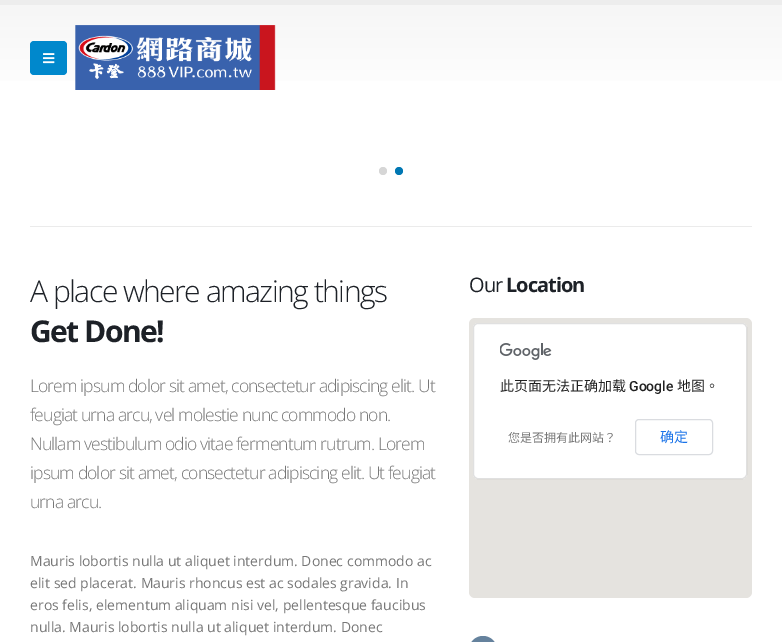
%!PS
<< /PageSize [782 642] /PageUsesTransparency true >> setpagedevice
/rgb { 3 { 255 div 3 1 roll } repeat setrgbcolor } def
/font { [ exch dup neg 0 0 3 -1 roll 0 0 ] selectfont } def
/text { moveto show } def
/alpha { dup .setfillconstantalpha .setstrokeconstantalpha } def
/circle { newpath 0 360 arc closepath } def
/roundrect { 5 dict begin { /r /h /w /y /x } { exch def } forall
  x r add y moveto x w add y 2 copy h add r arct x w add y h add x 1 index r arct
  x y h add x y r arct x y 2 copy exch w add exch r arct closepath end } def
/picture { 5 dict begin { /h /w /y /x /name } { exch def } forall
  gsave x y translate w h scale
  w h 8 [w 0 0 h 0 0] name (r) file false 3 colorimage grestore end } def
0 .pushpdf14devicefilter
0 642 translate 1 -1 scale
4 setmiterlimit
255 255 255 rgb
0 0 782 642 rectfill
237 237 237 rgb
0 0 782 5 rectfill
gsave 0 5 moveto 782 0 rlineto 0 76 rlineto -782 0 rlineto closepath clip newpath
<< /ShadingType 2 /ColorSpace /DeviceRGB /Coords [391 5 391 110] /Extend [true true] /Function << /FunctionType 2 /Domain [0 1] /C0 [0.965 0.965 0.965] /C1 [1 1 1] /N 1 >> >> shfill grestore
0 136 204 rgb
30 41 37 34 4 roundrect fill
(img_01.rgb) 43 53 12 11 picture
(img_02.rgb) 75 25 201 65 picture
214 214 214 rgb
383 171 4 circle fill
0 119 179 rgb
399 171 4 circle fill
235 235 235 rgb
30 226 722 1 rectfill
229 227 223 rgb
469 318 283 280 6 roundrect fill
255 255 255 rgb
473 323 274 156 5 roundrect fill
0.12 alpha
0 0 0 rgb
473.5 323.5 273 155 4.5 roundrect stroke
1 alpha
(img_03.rgb) 500 343 52 17 picture
218 220 224 rgb
635.5 419.5 77 35 3.5 roundrect stroke
101 130 157 rgb
469 636 28 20 14 roundrect fill
/OpenSans-Light 30 font
29 33 39 rgb
30 302 moveto -1.5 0 (A place where amazing things) ashow
/OpenSans-Bold 30 font
30 342 moveto -1.5 0 (Get Done!) ashow
/OpenSans-Light 17.5 font
119 119 119 rgb
30 392 moveto -0.88 0 (Lorem ipsum dolor sit amet, consectetur adipiscing elit. Ut) ashow
30 421 moveto -0.88 0 (feugiat urna arcu, vel molestie nunc commodo non.) ashow
30 450 moveto -0.88 0 (Nullam vestibulum odio vitae fermentum rutrum. Lorem) ashow
30 479 moveto -0.88 0 (ipsum dolor sit amet, consectetur adipiscing elit. Ut feugiat) ashow
30 508 moveto -0.88 0 (urna arcu.) ashow
/OpenSans-Regular 14 font
(Mauris lobortis nulla ut aliquet interdum. Donec commodo ac) 30 566 text
(elit sed placerat. Mauris rhoncus est ac sodales gravida. In) 30 588 text
(eros felis, elementum aliquam nisi vel, pellentesque faucibus) 30 610 text
(nulla. Mauris lobortis nulla ut aliquet interdum. Donec) 30 632 text
/OpenSans-Regular 20 font
29 33 39 rgb
469 292 moveto -1 0 (Our) ashow
/OpenSans-Bold 20 font
506 292 moveto -1 0 (Location) ashow
/NotoSansCJKTC-Regular 14 font
33 33 33 rgb
(此页面无法正确加载) 500 391 text
/Roboto-Medium 14 font
(Google) 629 391 text
/NotoSansCJKTC-Regular 14 font
(地图。) 677 391 text
/NotoSansCJKTC-Regular 12 font
119 119 119 rgb
(您是否拥有此网站？) 508 442 text
/NotoSansCJKTC-Regular 14 font
26 115 232 rgb
(确定) 660 442 text
.poppdf14devicefilter showpage
